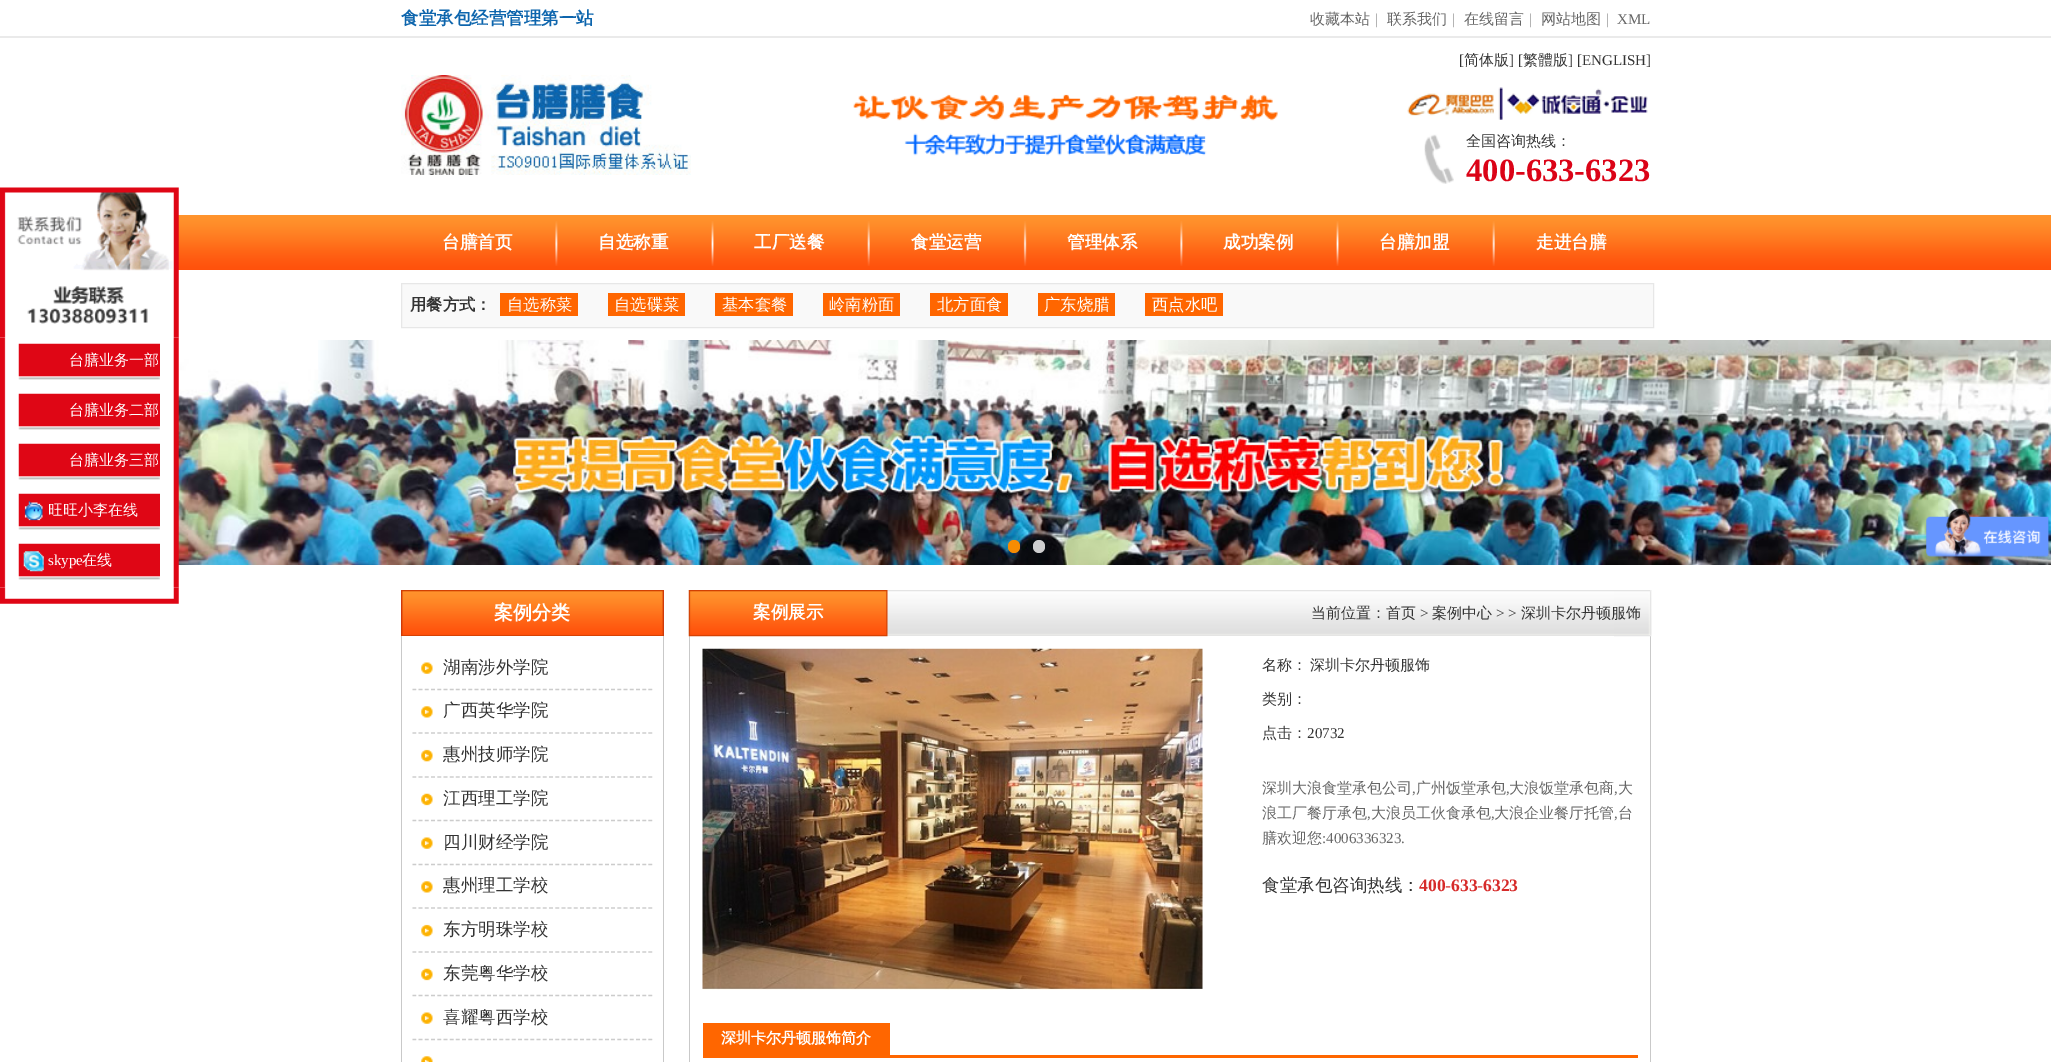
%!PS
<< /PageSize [2051 1062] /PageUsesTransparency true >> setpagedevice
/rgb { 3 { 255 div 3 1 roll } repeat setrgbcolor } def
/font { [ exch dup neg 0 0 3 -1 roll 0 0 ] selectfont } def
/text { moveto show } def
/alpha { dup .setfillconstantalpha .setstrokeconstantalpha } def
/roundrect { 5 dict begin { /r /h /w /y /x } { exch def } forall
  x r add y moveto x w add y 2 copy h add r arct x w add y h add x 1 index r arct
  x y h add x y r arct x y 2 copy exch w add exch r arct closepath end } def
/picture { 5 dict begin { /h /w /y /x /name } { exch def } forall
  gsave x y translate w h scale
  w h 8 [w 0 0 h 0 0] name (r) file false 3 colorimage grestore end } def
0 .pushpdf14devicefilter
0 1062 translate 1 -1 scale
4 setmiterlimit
255 255 255 rgb
0 0 2051 1062 rectfill
234 234 234 rgb
0 36 2051 2 rectfill
(img_01.rgb) 401 75 290 100 picture
(img_02.rgb) 853 94 425 62 picture
(img_03.rgb) 1407 87 241 33 picture
(img_04.rgb) 1424 134 30 50 picture
(img_05.rgb) 178 215 1873 55 picture
(img_06.rgb) 555 221 3 45 picture
(img_07.rgb) 711 221 3 45 picture
(img_08.rgb) 867 221 3 45 picture
(img_09.rgb) 1023 221 4 45 picture
(img_06.rgb) 1180 221 3 45 picture
(img_07.rgb) 1336 221 3 45 picture
(img_08.rgb) 1492 221 3 45 picture
249 249 249 rgb
401.5 283.5 moveto 1252 0 rlineto 0 44 rlineto -1252 0 rlineto closepath gsave fill grestore
231 231 231 rgb
stroke
255 102 0 rgb
500 293 78 23 rectfill
608 293 77 23 rectfill
715 293 78 23 rectfill
823 293 77 23 rectfill
930 293 78 23 rectfill
1038 293 77 23 rectfill
1145 293 78 23 rectfill
(img_10.rgb) 178 340 1873 225 picture
246 140 2 rgb
1008 540 12 13 6 roundrect fill
0.8 alpha
255 255 255 rgb
1033 540 12 13 6 roundrect fill
1 alpha
(img_11.rgb) 0 187 179 151 picture
(img_12.rgb) 0 337 179 251 picture
(img_13.rgb) 18 343 142 37 picture
(img_13.rgb) 18 393 142 37 picture
(img_13.rgb) 18 443 142 37 picture
(img_13.rgb) 18 493 142 37 picture
(img_14.rgb) 24 501 19 20 picture
(img_13.rgb) 18 543 142 37 picture
(img_15.rgb) 23 551 21 21 picture
(img_16.rgb) 0 587 179 17 picture
(img_17.rgb) 401 590 263 46 picture
201 201 201 rgb
663 636 1 426 rectfill
401 636 1 426 rectfill
(img_18.rgb) 421 662 12 12 picture
204 204 204 rgb
1.2 setlinewidth
[3.75 2.46] 0 setdash
412.5 689.5 moveto 240 0 rlineto stroke
(img_19.rgb) 421 706 12 12 picture
412.5 733 moveto 240 0 rlineto stroke
(img_20.rgb) 421 749 12 13 picture
412.5 777 moveto 240 0 rlineto stroke
(img_21.rgb) 421 793 12 13 picture
412.5 820.5 moveto 240 0 rlineto stroke
(img_18.rgb) 421 837 12 12 picture
412.5 864.5 moveto 240 0 rlineto stroke
(img_19.rgb) 421 881 12 12 picture
412.5 908 moveto 240 0 rlineto stroke
(img_20.rgb) 421 924 12 13 picture
412.5 952 moveto 240 0 rlineto stroke
(img_21.rgb) 421 968 12 13 picture
412.5 995.5 moveto 240 0 rlineto stroke
(img_18.rgb) 421 1012 12 12 picture
412.5 1039.5 moveto 240 0 rlineto stroke
(img_22.rgb) 421 1056 12 6 picture
(img_23.rgb) 688 590 964 47 picture
255 255 255 rgb
690 636 960 1 rectfill
201 201 201 rgb
689 636 1 426 rectfill
(img_24.rgb) 688 590 200 47 picture
1650 636 1 426 rectfill
(img_25.rgb) 1614 590 38 47 picture
(img_26.rgb) 702 648 501 342 picture
255 102 0 rgb
703 1055 935 3 rectfill
703 1023 187 32 rectfill
(img_27.rgb) 1926 508 124 49 picture
/WenQuanYiZenHei-Bold 17.5 font
13 101 173 rgb
(食堂承包经营管理第一站) 401 24 text
/WenQuanYiZenHei-Medium 15 font
102 102 102 rgb
(收藏本站) 1310 24 text
/LiberationSerif-Regular 15 font
153 153 153 rgb
(|) 1375 24 text
/WenQuanYiZenHei-Medium 15 font
102 102 102 rgb
(联系我们) 1387 24 text
/LiberationSerif-Regular 15 font
153 153 153 rgb
(|) 1452 24 text
/WenQuanYiZenHei-Medium 15 font
102 102 102 rgb
(在线留言) 1464 24 text
/LiberationSerif-Regular 15 font
153 153 153 rgb
(|) 1529 24 text
/WenQuanYiZenHei-Medium 15 font
102 102 102 rgb
(网站地图) 1541 24 text
/LiberationSerif-Regular 15 font
153 153 153 rgb
(|) 1606 24 text
102 102 102 rgb
(XML) 1617 24 text
51 51 51 rgb
([) 1459 65 text
/WenQuanYiZenHei-Medium 15 font
(简体版) 1464 65 text
/LiberationSerif-Regular 15 font
(] [) 1509 65 text
/WenQuanYiZenHei-Medium 15 font
(繁體版) 1523 65 text
/LiberationSerif-Regular 15 font
(] [ENGLISH]) 1568 65 text
/WenQuanYiZenHei-Medium 15 font
(全国咨询热线：) 1466 146 text
/LiberationSerif-Bold 32.5 font
219 3 23 rgb
(400-633-6323) 1466 181 text
/WenQuanYiZenHei-Bold 17.5 font
255 255 255 rgb
(台膳首页) 442 248 text
(自选称重) 598 248 text
(工厂送餐) 754 248 text
(食堂运营) 911 248 text
(管理体系) 1067 248 text
(成功案例) 1223 248 text
(台膳加盟) 1379 248 text
(走进台膳) 1536 248 text
/WenQuanYiZenHei-Bold 16.25 font
51 51 51 rgb
(用餐方式：) 410 310 text
/WenQuanYiZenHei-Medium 16.25 font
255 255 255 rgb
(自选称菜) 507 310 text
(自选碟菜) 614 310 text
(基本套餐) 722 310 text
(岭南粉面) 829 310 text
(北方面食) 937 310 text
(广东烧腊) 1044 310 text
(西点水吧) 1152 310 text
/WenQuanYiZenHei-Medium 15 font
(台膳业务一部) 69 365 text
(台膳业务二部) 69 415 text
(台膳业务三部) 69 465 text
(旺旺小李在线) 48 515 text
/LiberationSerif-Regular 15 font
(skype) 48 565 text
/WenQuanYiZenHei-Medium 15 font
(在线) 82 565 text
/WenQuanYiZenHei-Bold 19 font
(案例分类) 494 619 text
/WenQuanYiZenHei-Medium 17.5 font
51 51 51 rgb
(湖南涉外学院) 443 673 text
(广西英华学院) 443 716 text
(惠州技师学院) 443 760 text
(江西理工学院) 443 804 text
(四川财经学院) 443 848 text
(惠州理工学校) 443 891 text
(东方明珠学校) 443 935 text
(东莞粤华学校) 443 979 text
(喜耀粤西学校) 443 1023 text
/WenQuanYiZenHei-Bold 17.5 font
255 255 255 rgb
(案例展示) 753 618 text
/WenQuanYiZenHei-Medium 15 font
51 51 51 rgb
(当前位置：首页) 1311 618 text
/LiberationSerif-Regular 15 font
(>) 1420 618 text
/WenQuanYiZenHei-Medium 15 font
(案例中心) 1432 618 text
/LiberationSerif-Regular 15 font
(> >) 1496 618 text
/WenQuanYiZenHei-Medium 15 font
(深圳卡尔丹顿服饰) 1521 618 text
1262 670 moveto -1 0 32 (名称： 深圳卡尔丹顿服饰) widthshow
(类别：) 1262 704 text
(点击：) 1262 738 text
/LiberationSerif-Regular 15 font
(20732) 1307 738 text
/WenQuanYiZenHei-Medium 15 font
102 102 102 rgb
(深圳大浪食堂承包公司) 1262 793 text
/LiberationSerif-Regular 15 font
(,) 1412 793 text
/WenQuanYiZenHei-Medium 15 font
(广州饭堂承包) 1416 793 text
/LiberationSerif-Regular 15 font
(,) 1506 793 text
/WenQuanYiZenHei-Medium 15 font
(大浪饭堂承包商) 1509 793 text
/LiberationSerif-Regular 15 font
(,) 1614 793 text
/WenQuanYiZenHei-Medium 15 font
(大) 1618 793 text
(浪工厂餐厅承包) 1262 818 text
/LiberationSerif-Regular 15 font
(,) 1367 818 text
/WenQuanYiZenHei-Medium 15 font
(大浪员工伙食承包) 1371 818 text
/LiberationSerif-Regular 15 font
(,) 1491 818 text
/WenQuanYiZenHei-Medium 15 font
(大浪企业餐厅托管) 1494 818 text
/LiberationSerif-Regular 15 font
(,) 1614 818 text
/WenQuanYiZenHei-Medium 15 font
(台) 1618 818 text
(膳欢迎您) 1262 843 text
/LiberationSerif-Regular 15 font
(:4006336323.) 1322 843 text
/WenQuanYiZenHei-Medium 17.5 font
51 51 51 rgb
(食堂承包咨询热线：) 1262 891 text
/LiberationSerif-Bold 17.5 font
214 43 42 rgb
(400-633-6323) 1419 891 text
/WenQuanYiZenHei-Bold 15 font
255 255 255 rgb
(深圳卡尔丹顿服饰简介) 721 1043 text
.poppdf14devicefilter showpage
